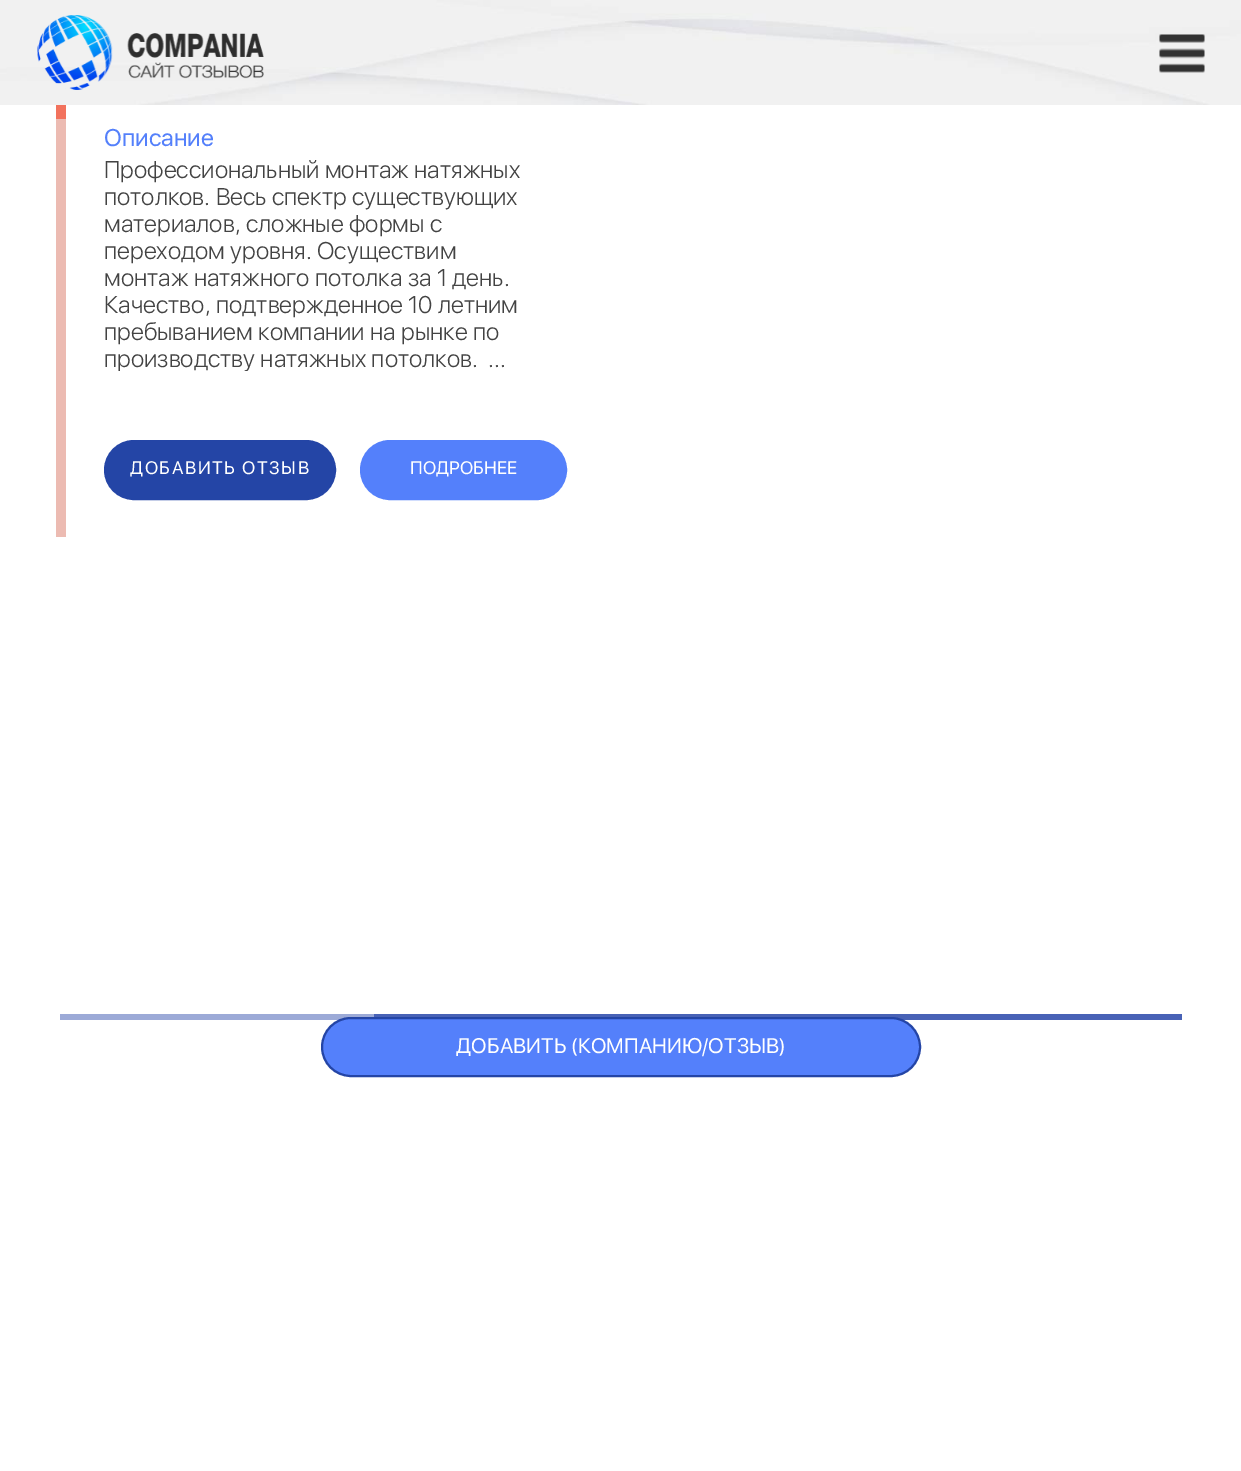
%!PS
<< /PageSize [1241 1471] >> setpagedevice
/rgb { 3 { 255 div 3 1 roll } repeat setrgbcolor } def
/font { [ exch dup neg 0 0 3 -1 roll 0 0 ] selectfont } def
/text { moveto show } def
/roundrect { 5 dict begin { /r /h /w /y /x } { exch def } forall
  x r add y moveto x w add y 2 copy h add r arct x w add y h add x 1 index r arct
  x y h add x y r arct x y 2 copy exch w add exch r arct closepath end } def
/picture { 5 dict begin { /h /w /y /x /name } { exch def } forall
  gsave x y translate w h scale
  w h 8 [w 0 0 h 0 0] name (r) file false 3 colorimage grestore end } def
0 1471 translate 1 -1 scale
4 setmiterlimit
255 255 255 rgb
0 0 1241 1471 rectfill
(img_01.rgb) 0 0 1241 105 picture
(img_02.rgb) 37 15 227 75 picture
(img_03.rgb) 1159 34 46 39 picture
242 114 93 rgb
56 105 10 14 rectfill
236 187 178 rgb
56 119 10 418 rectfill
36 69 166 rgb
105 441 230 58 29 roundrect gsave fill grestore
2 setlinewidth
stroke
84 128 251 rgb
361 441 205 58 29 roundrect gsave fill grestore
stroke
156 170 215 rgb
60 1014 314 6 rectfill
72 98 182 rgb
374 1014 808 6 rectfill
84 128 251 rgb
322 1018 598 58 29 roundrect gsave fill grestore
36 69 166 rgb
stroke
/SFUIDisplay-Regular 24 font
84 128 251 rgb
(Описание) 104 146 text
/SFUIDisplay-Light 24 font
67 67 67 rgb
(Профессиональный монтаж натяжных) 104 178 text
(потолков. Весь спектр существующих) 104 205 text
(материалов, сложные формы с) 104 232 text
(переходом уровня. Осуществим) 104 259 text
(монтаж натяжного потолка за 1 день.) 104 286 text
(Качество, подтвержденное 10 летним) 104 313 text
(пребыванием компании на рынке по) 104 340 text
gsave
104 158 463 213 rectclip
(производству натяжных потолков.) 104 367 text
grestore
(...) 488 367 text
/SFUIDisplay-Regular 18 font
255 255 255 rgb
130 474 moveto 1.5 0 (ДОБАВИТЬ ОТЗЫВ) ashow
(ПОДРОБНЕЕ) 410 474 text
/SFUIDisplay-Regular 21 font
(ДОБАВИТЬ \(КОМПАНИЮ/ОТЗЫВ\)) 456 1053 text
showpage
